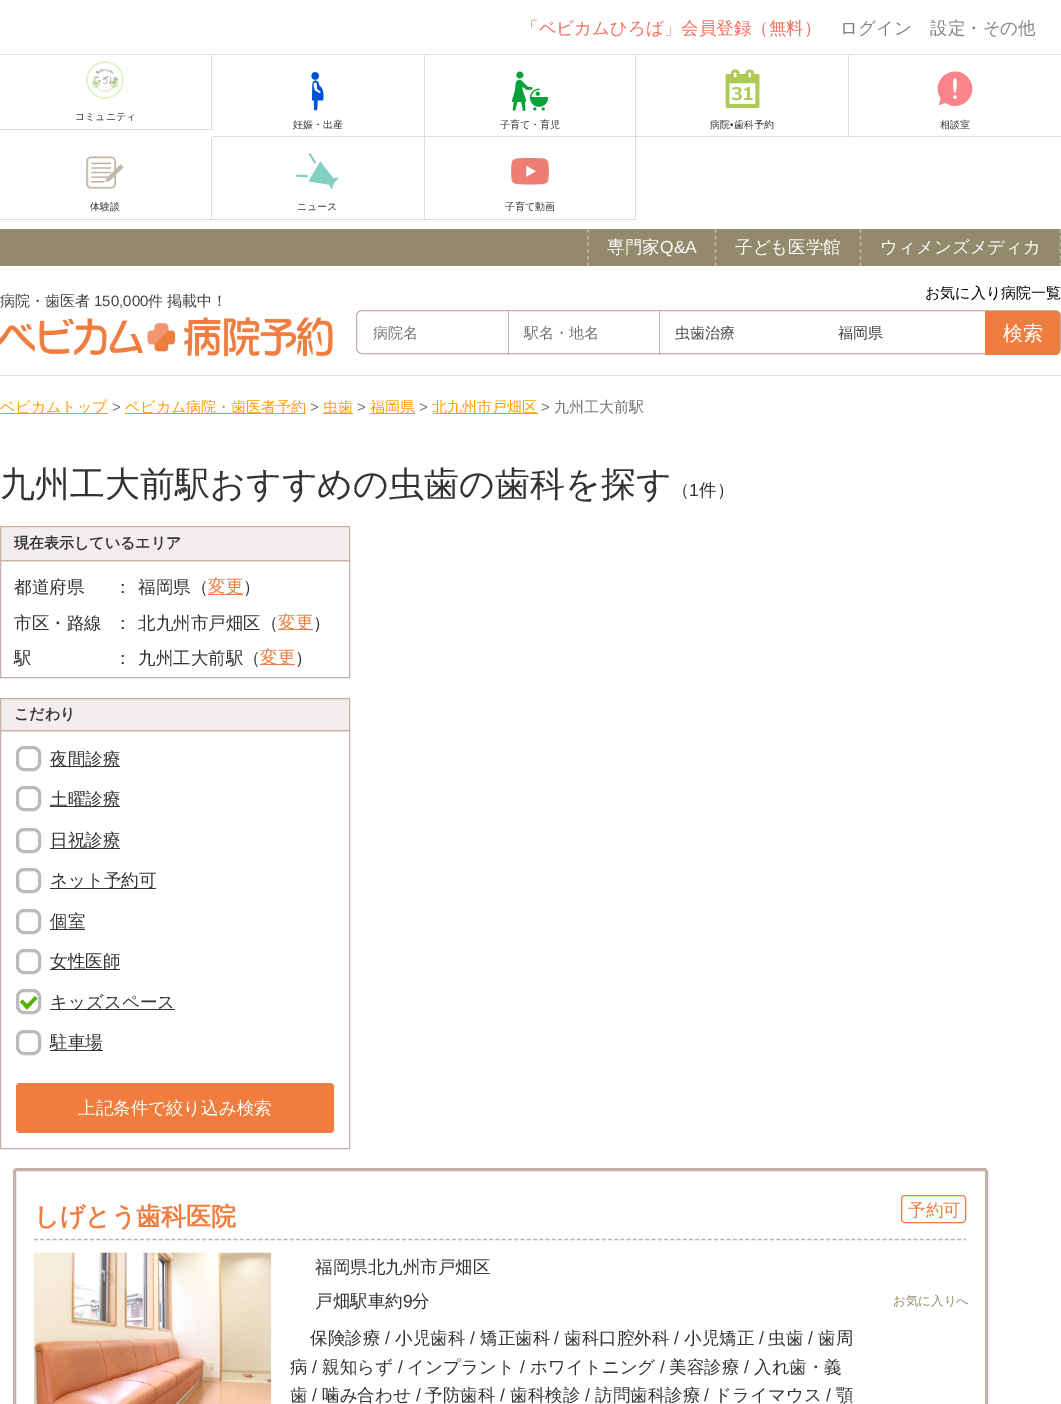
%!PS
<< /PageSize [1061 1404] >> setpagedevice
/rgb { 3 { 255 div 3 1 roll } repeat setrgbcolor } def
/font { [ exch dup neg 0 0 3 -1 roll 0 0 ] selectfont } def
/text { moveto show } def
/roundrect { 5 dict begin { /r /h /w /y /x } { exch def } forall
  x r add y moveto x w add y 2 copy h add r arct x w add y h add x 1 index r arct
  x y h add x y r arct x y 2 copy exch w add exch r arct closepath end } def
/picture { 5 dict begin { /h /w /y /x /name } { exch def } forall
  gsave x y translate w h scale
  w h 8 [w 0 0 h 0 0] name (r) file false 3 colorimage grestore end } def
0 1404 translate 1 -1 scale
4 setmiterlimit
255 255 255 rgb
0 0 1061 1404 rectfill
229 228 217 rgb
0 54 1061 1 rectfill
221 221 221 rgb
211 55 1 75 rectfill
0 129 213 1 rectfill
(img_01.rgb) 86 61 38 38 picture
424 55 1 165 rectfill
213 136 212 1 rectfill
(img_02.rgb) 311 72 13 39 picture
635 55 1 165 rectfill
425 136 211 1 rectfill
(img_03.rgb) 511 71 38 40 picture
848 55 1 83 rectfill
636 136 425 1 rectfill
(img_04.rgb) 725 69 35 39 picture
(img_05.rgb) 937 71 36 35 picture
211 138 1 82 rectfill
0 219 636 1 rectfill
(img_06.rgb) 86 156 38 33 picture
(img_07.rgb) 296 152 43 38 picture
(img_08.rgb) 511 158 38 27 picture
146 138 107 rgb
0 229 1061 37 rectfill
195 189 164 rgb
1.2 setlinewidth
[3.75 3] 0 setdash
715.5 229 moveto 0 37 rlineto stroke
588 229 moveto 0 37 rlineto stroke
860.5 229 moveto 0 37 rlineto stroke
1060.5 229 moveto 0 37 rlineto stroke
221 221 221 rgb
0 375 1061 1 rectfill
(img_09.rgb) 0 317 333 40 picture
195 177 169 rgb
1 setlinewidth
[] 0 setdash
356.5 310.5 704 43 5.5 roundrect stroke
508 311 1 44 rectfill
659 311 1 44 rectfill
239 125 63 rgb
985 311 moveto 71 0 rlineto 2 0 4 2 4 4 rcurveto 0 36 rlineto 0 2 -2 4 -4 4 rcurveto -71 0 rlineto closepath fill
255 156 0 rgb
0 413 108 1 rectfill
125 413 181 1 rectfill
323 413 30 1 rectfill
370 413 45 1 rectfill
433 413 105 1 rectfill
197 177 169 rgb
0.5 560.5 349 117 rectstroke
241 238 237 rgb
0.5 526.5 moveto 349 0 rlineto 0 34 rlineto -349 0 rlineto closepath gsave fill grestore
199 177 169 rgb
stroke
239 125 63 rgb
208 594 35 1 rectfill
278 629 35 1 rectfill
260 664 35 1 rectfill
197 177 169 rgb
0.5 730.5 349 418 rectstroke
241 238 237 rgb
0.5 698.5 moveto 349 0 rlineto 0 32 rlineto -349 0 rlineto closepath gsave fill grestore
198 177 169 rgb
stroke
187 187 187 rgb
3 setlinewidth
17.5 747.5 22 22 6.5 roundrect stroke
51 51 51 rgb
50 766 70 1 rectfill
187 187 187 rgb
17.5 787.5 22 22 6.5 roundrect stroke
51 51 51 rgb
50 806 70 1 rectfill
187 187 187 rgb
17.5 829.5 22 22 6.5 roundrect stroke
51 51 51 rgb
50 848 70 1 rectfill
187 187 187 rgb
17.5 869.5 22 22 6.5 roundrect stroke
51 51 51 rgb
50 888 106 1 rectfill
187 187 187 rgb
17.5 910.5 22 22 6.5 roundrect stroke
51 51 51 rgb
50 929 35 1 rectfill
187 187 187 rgb
17.5 950.5 22 22 6.5 roundrect stroke
51 51 51 rgb
50 969 70 1 rectfill
83 179 0 rgb
35 996 moveto 2.5 2.5 rlineto -10.5 11 rlineto -2.5 -3 rlineto closepath fill
22.5 999.5 moveto 7 7 rlineto -2.5 3 rlineto -7 -7.5 rlineto closepath fill
187 187 187 rgb
17.5 990.5 22 22 6.5 roundrect stroke
51 51 51 rgb
50 1009 125 1 rectfill
187 187 187 rgb
17.5 1031.5 22 22 6.5 roundrect stroke
51 51 51 rgb
50 1050 53 1 rectfill
240 124 62 rgb
16 1083 318 50 4 roundrect fill
197 177 169 rgb
14.5 1169.5 972 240 2.5 roundrect stroke
198 177 169 rgb
1.2 setlinewidth
[3.75 2.49] 0 setdash
34 1239.5 moveto 932 0 rlineto stroke
240 124 62 rgb
1 setlinewidth
[] 0 setdash
901.5 1195.5 64 27 3.5 roundrect stroke
(img_10.rgb) 33 1252 239 152 picture
/WenQuanYiZenHei-Medium 17.5 font
243 108 96 rgb
(「ベビカムひろば」会員登録（無料）) 521 34 text
134 129 129 rgb
(ログイン) 840 34 text
(設定・その他) 930 34 text
/WenQuanYiZenHei-Medium 10 font
51 51 51 rgb
(コミュニティ) 75 120 text
(妊娠・出産) 293 128 text
(子育て・育児) 500 128 text
(病院) 710 128 text
/LiberationSans-Regular 10 font
(•) 730 128 text
/WenQuanYiZenHei-Medium 10 font
(歯科予約) 734 128 text
(相談室) 940 128 text
(体験談) 90 210 text
(ニュース) 297 210 text
(子育て動画) 505 210 text
/WenQuanYiZenHei-Medium 17.5 font
255 255 255 rgb
(専門家) 607 253 text
/LiberationSans-Regular 17.5 font
(Q&A) 660 253 text
/WenQuanYiZenHei-Medium 17.5 font
(子ども医学館) 735 253 text
(ウィメンズメディカ) 880 253 text
/WenQuanYiZenHei-Medium 15 font
0 0 0 rgb
(お気に入り病院一覧) 925 298 text
68 68 68 rgb
(病院・歯医者) 0 306 text
/LiberationSans-Regular 15 font
(150,000) 94 306 text
/WenQuanYiZenHei-Medium 15 font
(件 掲載中！) 148 306 text
117 117 117 rgb
(病院名) 373 338 text
(駅名・地名) 524 338 text
68 68 68 rgb
(虫歯治療) 675 338 text
(福岡県) 838 338 text
/WenQuanYiZenHei-Medium 20 font
255 255 255 rgb
(検索) 1003 340 text
/WenQuanYiZenHei-Medium 15 font
255 156 0 rgb
(ベビカムトップ) 0 412 text
/LiberationSans-Regular 15 font
117 117 117 rgb
(>) 112 412 text
/WenQuanYiZenHei-Medium 15 font
255 156 0 rgb
(ベビカム病院・歯医者予約) 125 412 text
/LiberationSans-Regular 15 font
117 117 117 rgb
(>) 310 412 text
/WenQuanYiZenHei-Medium 15 font
255 156 0 rgb
(虫歯) 323 412 text
/LiberationSans-Regular 15 font
117 117 117 rgb
(>) 357 412 text
/WenQuanYiZenHei-Medium 15 font
255 156 0 rgb
(福岡県) 370 412 text
/LiberationSans-Regular 15 font
117 117 117 rgb
(>) 419 412 text
/WenQuanYiZenHei-Medium 15 font
255 156 0 rgb
(北九州市戸畑区) 432 412 text
/LiberationSans-Regular 15 font
117 117 117 rgb
(>) 541 412 text
/WenQuanYiZenHei-Medium 15 font
(九州工大前駅) 554 412 text
/WenQuanYiZenHei-Medium 35 font
51 51 51 rgb
(九州工大前駅おすすめの虫歯の歯科を探す) 0 496 text
/WenQuanYiZenHei-Medium 17.5 font
(（) 672 496 text
/LiberationSans-Regular 17.5 font
(1) 689 496 text
/WenQuanYiZenHei-Medium 17.5 font
(件）) 699 496 text
/WenQuanYiZenHei-Bold 15 font
(現在表示しているエリア) 14 548 text
/WenQuanYiZenHei-Medium 17.5 font
(都道府県) 14 593 text
(：) 114 593 text
(福岡県（) 138 593 text
239 125 63 rgb
(変更) 208 592 text
51 51 51 rgb
(）) 243 593 text
(市区・路線) 14 629 text
(：) 114 629 text
(北九州市戸畑区（) 138 629 text
239 125 63 rgb
(変更) 278 628 text
51 51 51 rgb
(）) 313 629 text
(駅) 14 664 text
(：) 114 664 text
(九州工大前駅（) 138 664 text
239 125 63 rgb
(変更) 260 663 text
51 51 51 rgb
(）) 295 664 text
/WenQuanYiZenHei-Bold 15 font
(こだわり) 14 719 text
/WenQuanYiZenHei-Medium 17.5 font
(夜間診療) 50 765 text
(土曜診療) 50 805 text
(日祝診療) 50 846 text
(ネット予約可) 50 886 text
(個室) 50 927 text
(女性医師) 50 967 text
(キッズスペース) 50 1008 text
(駐車場) 50 1048 text
255 255 255 rgb
(上記条件で絞り込み検索) 78 1114 text
/WenQuanYiZenHei-Bold 25 font
239 125 63 rgb
(しげとう歯科医院) 34 1225 text
/WenQuanYiZenHei-Medium 17.5 font
(予約可) 908 1216 text
51 51 51 rgb
(福岡県北九州市戸畑区) 315 1273 text
(戸畑駅車約) 315 1307 text
/LiberationSans-Regular 17.5 font
(9) 403 1307 text
/WenQuanYiZenHei-Medium 17.5 font
(分) 412 1307 text
/WenQuanYiZenHei-Medium 12.5 font
146 138 107 rgb
(お気に入りへ) 893 1305 text
/WenQuanYiZenHei-Medium 17.5 font
51 51 51 rgb
(保険診療) 310 1344 text
/LiberationSans-Regular 17.5 font
(/) 385 1344 text
/WenQuanYiZenHei-Medium 17.5 font
(小児歯科) 395 1344 text
/LiberationSans-Regular 17.5 font
(/) 470 1344 text
/WenQuanYiZenHei-Medium 17.5 font
(矯正歯科) 480 1344 text
/LiberationSans-Regular 17.5 font
(/) 554 1344 text
/WenQuanYiZenHei-Medium 17.5 font
(歯科口腔外科) 564 1344 text
/LiberationSans-Regular 17.5 font
(/) 674 1344 text
/WenQuanYiZenHei-Medium 17.5 font
(小児矯正) 684 1344 text
/LiberationSans-Regular 17.5 font
(/) 759 1344 text
/WenQuanYiZenHei-Medium 17.5 font
(虫歯) 768 1344 text
/LiberationSans-Regular 17.5 font
(/) 808 1344 text
/WenQuanYiZenHei-Medium 17.5 font
(歯周) 818 1344 text
(病) 290 1373 text
/LiberationSans-Regular 17.5 font
(/) 312 1373 text
/WenQuanYiZenHei-Medium 17.5 font
(親知らず) 322 1373 text
/LiberationSans-Regular 17.5 font
(/) 398 1373 text
/WenQuanYiZenHei-Medium 17.5 font
(インプラント) 407 1373 text
/LiberationSans-Regular 17.5 font
(/) 520 1373 text
/WenQuanYiZenHei-Medium 17.5 font
(ホワイトニング) 530 1373 text
/LiberationSans-Regular 17.5 font
(/) 660 1373 text
/WenQuanYiZenHei-Medium 17.5 font
(美容診療) 669 1373 text
/LiberationSans-Regular 17.5 font
(/) 744 1373 text
/WenQuanYiZenHei-Medium 17.5 font
(入れ歯・義) 754 1373 text
(歯) 290 1401 text
/LiberationSans-Regular 17.5 font
(/) 312 1401 text
/WenQuanYiZenHei-Medium 17.5 font
(噛み合わせ) 322 1401 text
/LiberationSans-Regular 17.5 font
(/) 416 1401 text
/WenQuanYiZenHei-Medium 17.5 font
(予防歯科) 425 1401 text
/LiberationSans-Regular 17.5 font
(/) 500 1401 text
/WenQuanYiZenHei-Medium 17.5 font
(歯科検診) 510 1401 text
/LiberationSans-Regular 17.5 font
(/) 585 1401 text
/WenQuanYiZenHei-Medium 17.5 font
(訪問歯科診療) 595 1401 text
/LiberationSans-Regular 17.5 font
(/) 704 1401 text
/WenQuanYiZenHei-Medium 17.5 font
(ドライマウス) 714 1401 text
/LiberationSans-Regular 17.5 font
(/) 826 1401 text
/WenQuanYiZenHei-Medium 17.5 font
(顎) 836 1401 text
showpage
